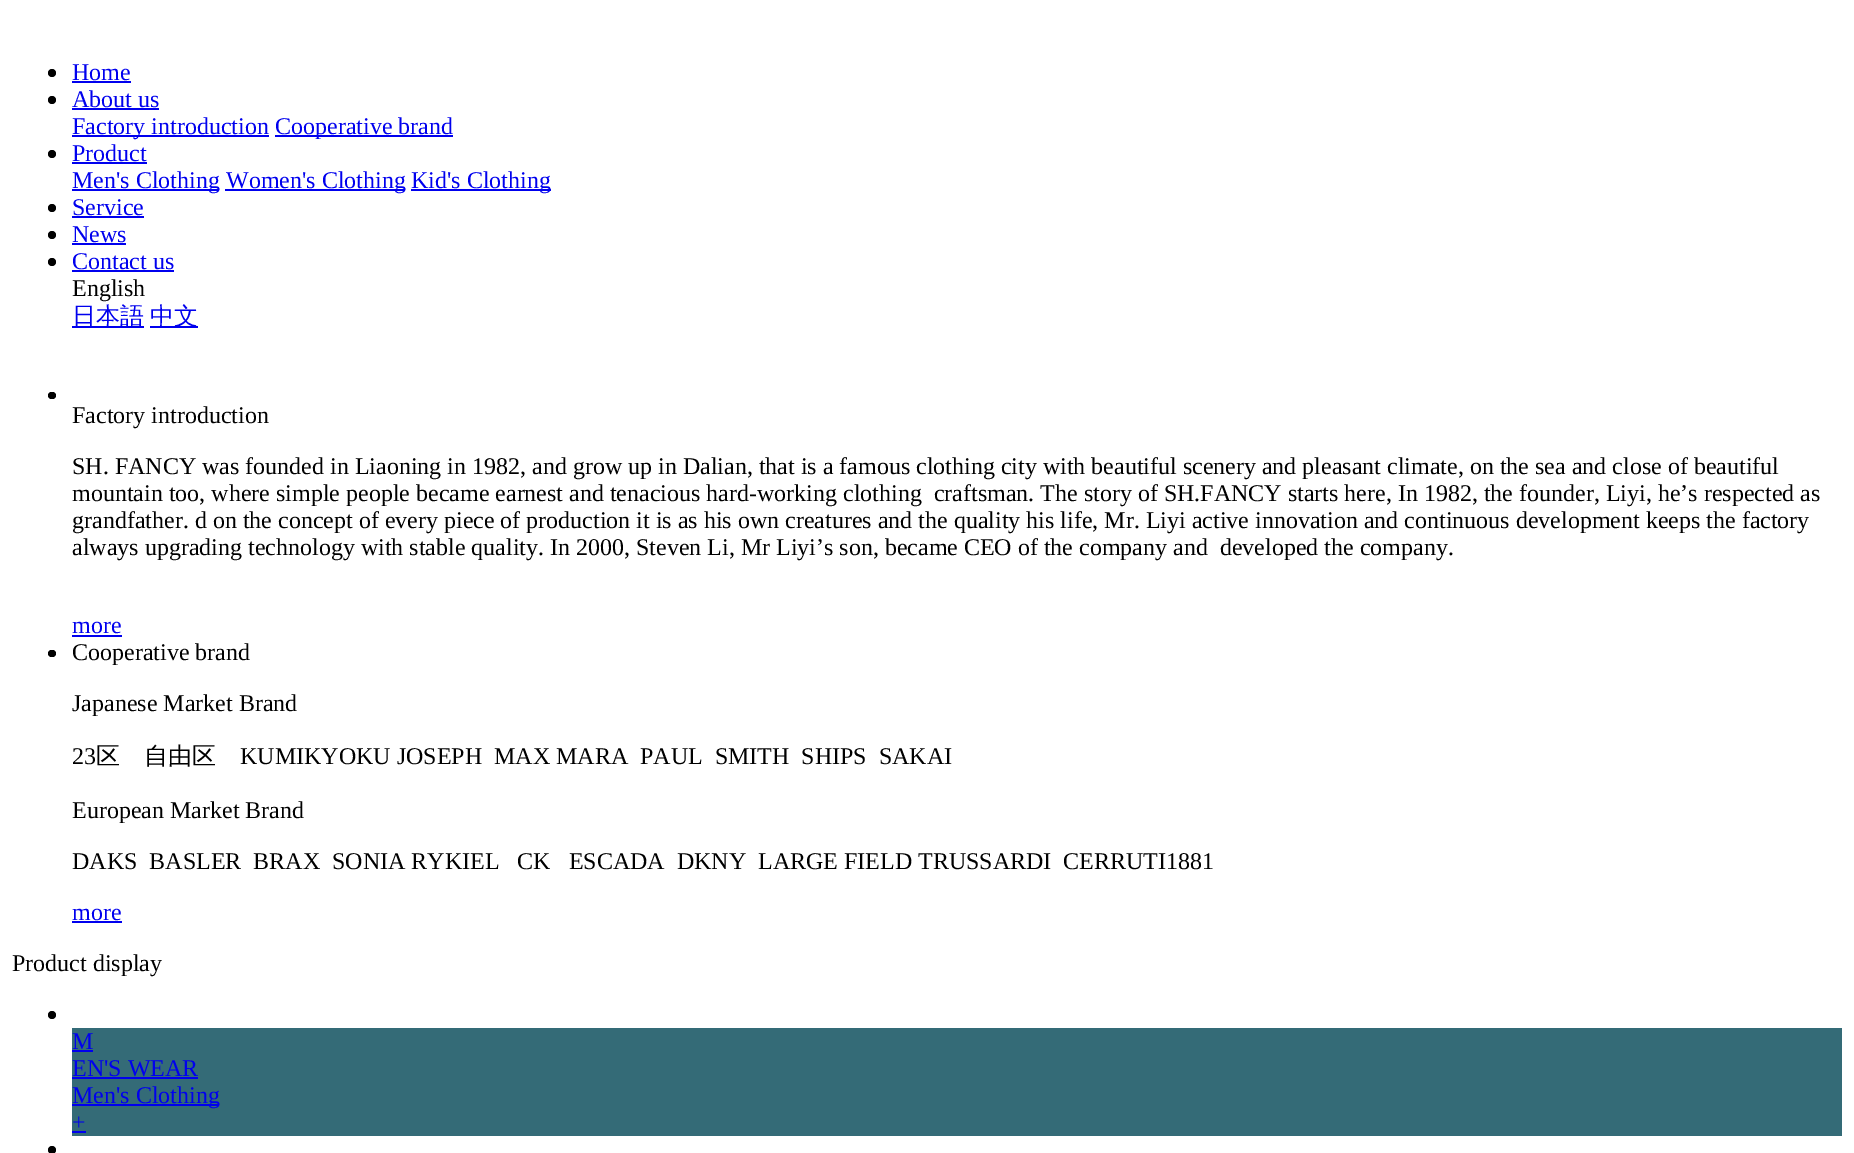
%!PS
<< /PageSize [1854 1153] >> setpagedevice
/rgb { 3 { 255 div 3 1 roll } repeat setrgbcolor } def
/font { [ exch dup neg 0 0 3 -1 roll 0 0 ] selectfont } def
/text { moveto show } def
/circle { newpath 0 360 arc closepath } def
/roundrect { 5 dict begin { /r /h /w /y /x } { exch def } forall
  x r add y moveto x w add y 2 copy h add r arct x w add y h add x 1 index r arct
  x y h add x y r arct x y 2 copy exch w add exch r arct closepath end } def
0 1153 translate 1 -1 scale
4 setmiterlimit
255 255 255 rgb
0 0 1854 1153 rectfill
0 0 0 rgb
52 73 4 circle fill
0 0 238 rgb
72 81 59 2 rectfill
0 0 0 rgb
52 100 4 circle fill
0 0 238 rgb
72 108 87 2 rectfill
72 135 197 2 rectfill
275 135 178 2 rectfill
0 0 0 rgb
52 154 4 circle fill
0 0 238 rgb
72 162 75 2 rectfill
72 189 147 2 rectfill
225 189 180 2 rectfill
411 189 140 2 rectfill
0 0 0 rgb
52 208 4 circle fill
0 0 238 rgb
72 216 72 2 rectfill
0 0 0 rgb
52 235 4 circle fill
0 0 238 rgb
72 243 54 2 rectfill
0 0 0 rgb
52 262 4 circle fill
0 0 238 rgb
72 270 102 2 rectfill
72 326 72 2 rectfill
150 326 48 2 rectfill
0 0 0 rgb
48 392 8 7 3.5 roundrect fill
0 0 238 rgb
72 635 50 2 rectfill
0 0 0 rgb
48 650 8 7 3.5 roundrect fill
0 0 238 rgb
72 921 50 2 rectfill
0 0 0 rgb
52 1015 4 circle fill
52 107 119 rgb
72 1028 1770 108 rectfill
0 0 238 rgb
72 1050 21 2 rectfill
72 1077 126 2 rectfill
72 1104 147 2 rectfill
72 1131 14 2 rectfill
0 0 0 rgb
52 1150 4 circle fill
/LiberationSerif-Regular 24 font
0 0 238 rgb
(Home) 72 80 text
(About us) 72 107 text
(Factory introduction) 72 134 text
(Cooperative brand) 275 134 text
(Product) 72 161 text
(Men's Clothing) 72 188 text
(Women's Clothing) 226 188 text
(Kid's Clothing) 411 188 text
(Service) 72 215 text
(News) 72 242 text
(Contact us) 72 269 text
0 0 0 rgb
(English) 72 296 text
/WenQuanYiZenHei-Medium 24 font
0 0 238 rgb
(日本語) 72 324 text
(中文) 150 324 text
/LiberationSerif-Regular 24 font
0 0 0 rgb
(Factory introduction) 72 423 text
(SH. FANCY was founded in Liaoning in 1982, and grow up in Dalian, that is a famous clothing city with beautiful scenery and pleasant climate, on the sea and close of beautiful) 72 474 text
(mountain too, where simple people became earnest and tenacious hard-working clothing  craftsman. The story of SH.FANCY starts here, In 1982, the founder, Liyi, he’s respected as) 72 501 text
(grandfather. d on the concept of every piece of production it is as his own creatures and the quality his life, Mr. Liyi active innovation and continuous development keeps the factory) 72 528 text
(always upgrading technology with stable quality. In 2000, Steven Li, Mr Liyi’s son, became CEO of the company and  developed the company.) 72 555 text
0 0 238 rgb
(more) 72 633 text
0 0 0 rgb
(Cooperative brand) 72 660 text
(Japanese Market Brand) 72 711 text
(23) 72 764 text
/WenQuanYiZenHei-Medium 24 font
(区　自由区) 96 764 text
/LiberationSerif-Regular 24 font
(KUMIKYOKU JOSEPH  MAX MARA  PAUL  SMITH  SHIPS  SAKAI) 240 764 text
(European Market Brand) 72 818 text
(DAKS  BASLER  BRAX  SONIA RYKIEL   CK   ESCADA  DKNY  LARGE FIELD TRUSSARDI  CERRUTI1881) 72 869 text
0 0 238 rgb
(more) 72 920 text
0 0 0 rgb
(Product display) 12 971 text
0 0 238 rgb
(M) 72 1049 text
(EN'S WEAR) 72 1076 text
(Men's Clothing) 72 1103 text
(+) 72 1130 text
showpage
